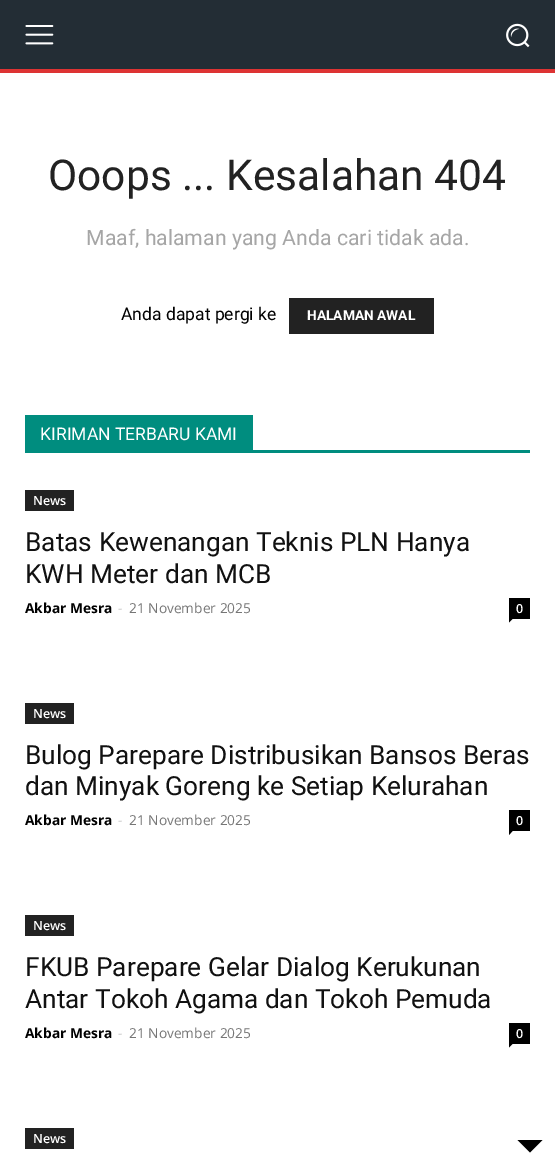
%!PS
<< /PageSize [555 1166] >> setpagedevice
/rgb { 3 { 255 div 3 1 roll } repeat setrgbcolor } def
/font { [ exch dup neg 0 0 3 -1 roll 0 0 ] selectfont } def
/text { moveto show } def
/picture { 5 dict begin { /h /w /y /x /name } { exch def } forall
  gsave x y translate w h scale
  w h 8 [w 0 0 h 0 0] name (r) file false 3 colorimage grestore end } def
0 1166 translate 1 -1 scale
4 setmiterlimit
255 255 255 rgb
0 0 555 1166 rectfill
35 45 53 rgb
0 0 555 69 rectfill
(img_01.rgb) 25 25 29 20 picture
(img_02.rgb) 506 23 24 25 picture
221 51 51 rgb
0 69 555 4 rectfill
34 34 34 rgb
289 298 145 36 rectfill
0 141 127 rgb
25 450 505 3 rectfill
25 415 228 35 rectfill
34 34 34 rgb
25 490 49 21 rectfill
0 0 0 rgb
509 598 21 21 rectfill
509 619 moveto 3.5 0 rlineto -3.5 3.5 rlineto closepath fill
34 34 34 rgb
25 703 49 21 rectfill
0 0 0 rgb
509 810 21 21 rectfill
509 831 moveto 3.5 0 rlineto -3.5 4 rlineto closepath fill
34 34 34 rgb
25 915 49 21 rectfill
0 0 0 rgb
509 1023 21 21 rectfill
509 1044 moveto 3.5 0 rlineto -3.5 3.5 rlineto closepath fill
34 34 34 rgb
25 1128 49 21 rectfill
0 0 0 rgb
517.5 1140 moveto 25 0 rlineto -12.5 12.5 rlineto closepath fill
/Roboto-Regular 42.5 font
34 34 34 rgb
(Ooops ... Kesalahan 404) 48 190 text
/Roboto-Regular 21.25 font
166 166 166 rgb
(Maaf, halaman yang Anda cari tidak ada.) 86 245 text
/Roboto-Regular 17.5 font
0 0 0 rgb
(Anda dapat pergi ke) 121 320 text
/Roboto-Bold 13.75 font
255 255 255 rgb
(HALAMAN AWAL) 307 320 text
/Roboto-Regular 17.5 font
(KIRIMAN TERBARU KAMI) 40 440 text
/OpenSans-SemiBold 12.5 font
(News) 33 505 text
/Roboto-Regular 26.25 font
17 17 17 rgb
(Batas Kewenangan Teknis PLN Hanya) 25 551 text
(KWH Meter dan MCB) 25 583 text
/OpenSans-Bold 13.75 font
0 0 0 rgb
(Akbar Mesra) 25 613 text
/OpenSans-Regular 13.75 font
204 204 204 rgb
(-) 118 613 text
118 118 118 rgb
(21 November 2025) 129 613 text
/OpenSans-SemiBold 12.5 font
255 255 255 rgb
(0) 516 613 text
(News) 33 718 text
/Roboto-Regular 26.25 font
17 17 17 rgb
(Bulog Parepare Distribusikan Bansos Beras) 25 764 text
(dan Minyak Goreng ke Setiap Kelurahan) 25 795 text
/OpenSans-Bold 13.75 font
0 0 0 rgb
(Akbar Mesra) 25 825 text
/OpenSans-Regular 13.75 font
204 204 204 rgb
(-) 118 825 text
118 118 118 rgb
(21 November 2025) 129 825 text
/OpenSans-SemiBold 12.5 font
255 255 255 rgb
(0) 516 825 text
(News) 33 930 text
/Roboto-Regular 26.25 font
17 17 17 rgb
(FKUB Parepare Gelar Dialog Kerukunan) 25 976 text
(Antar Tokoh Agama dan Tokoh Pemuda) 25 1008 text
/OpenSans-Bold 13.75 font
0 0 0 rgb
(Akbar Mesra) 25 1038 text
/OpenSans-Regular 13.75 font
204 204 204 rgb
(-) 118 1038 text
118 118 118 rgb
(21 November 2025) 129 1038 text
/OpenSans-SemiBold 12.5 font
255 255 255 rgb
(0) 516 1038 text
(News) 33 1143 text
showpage
